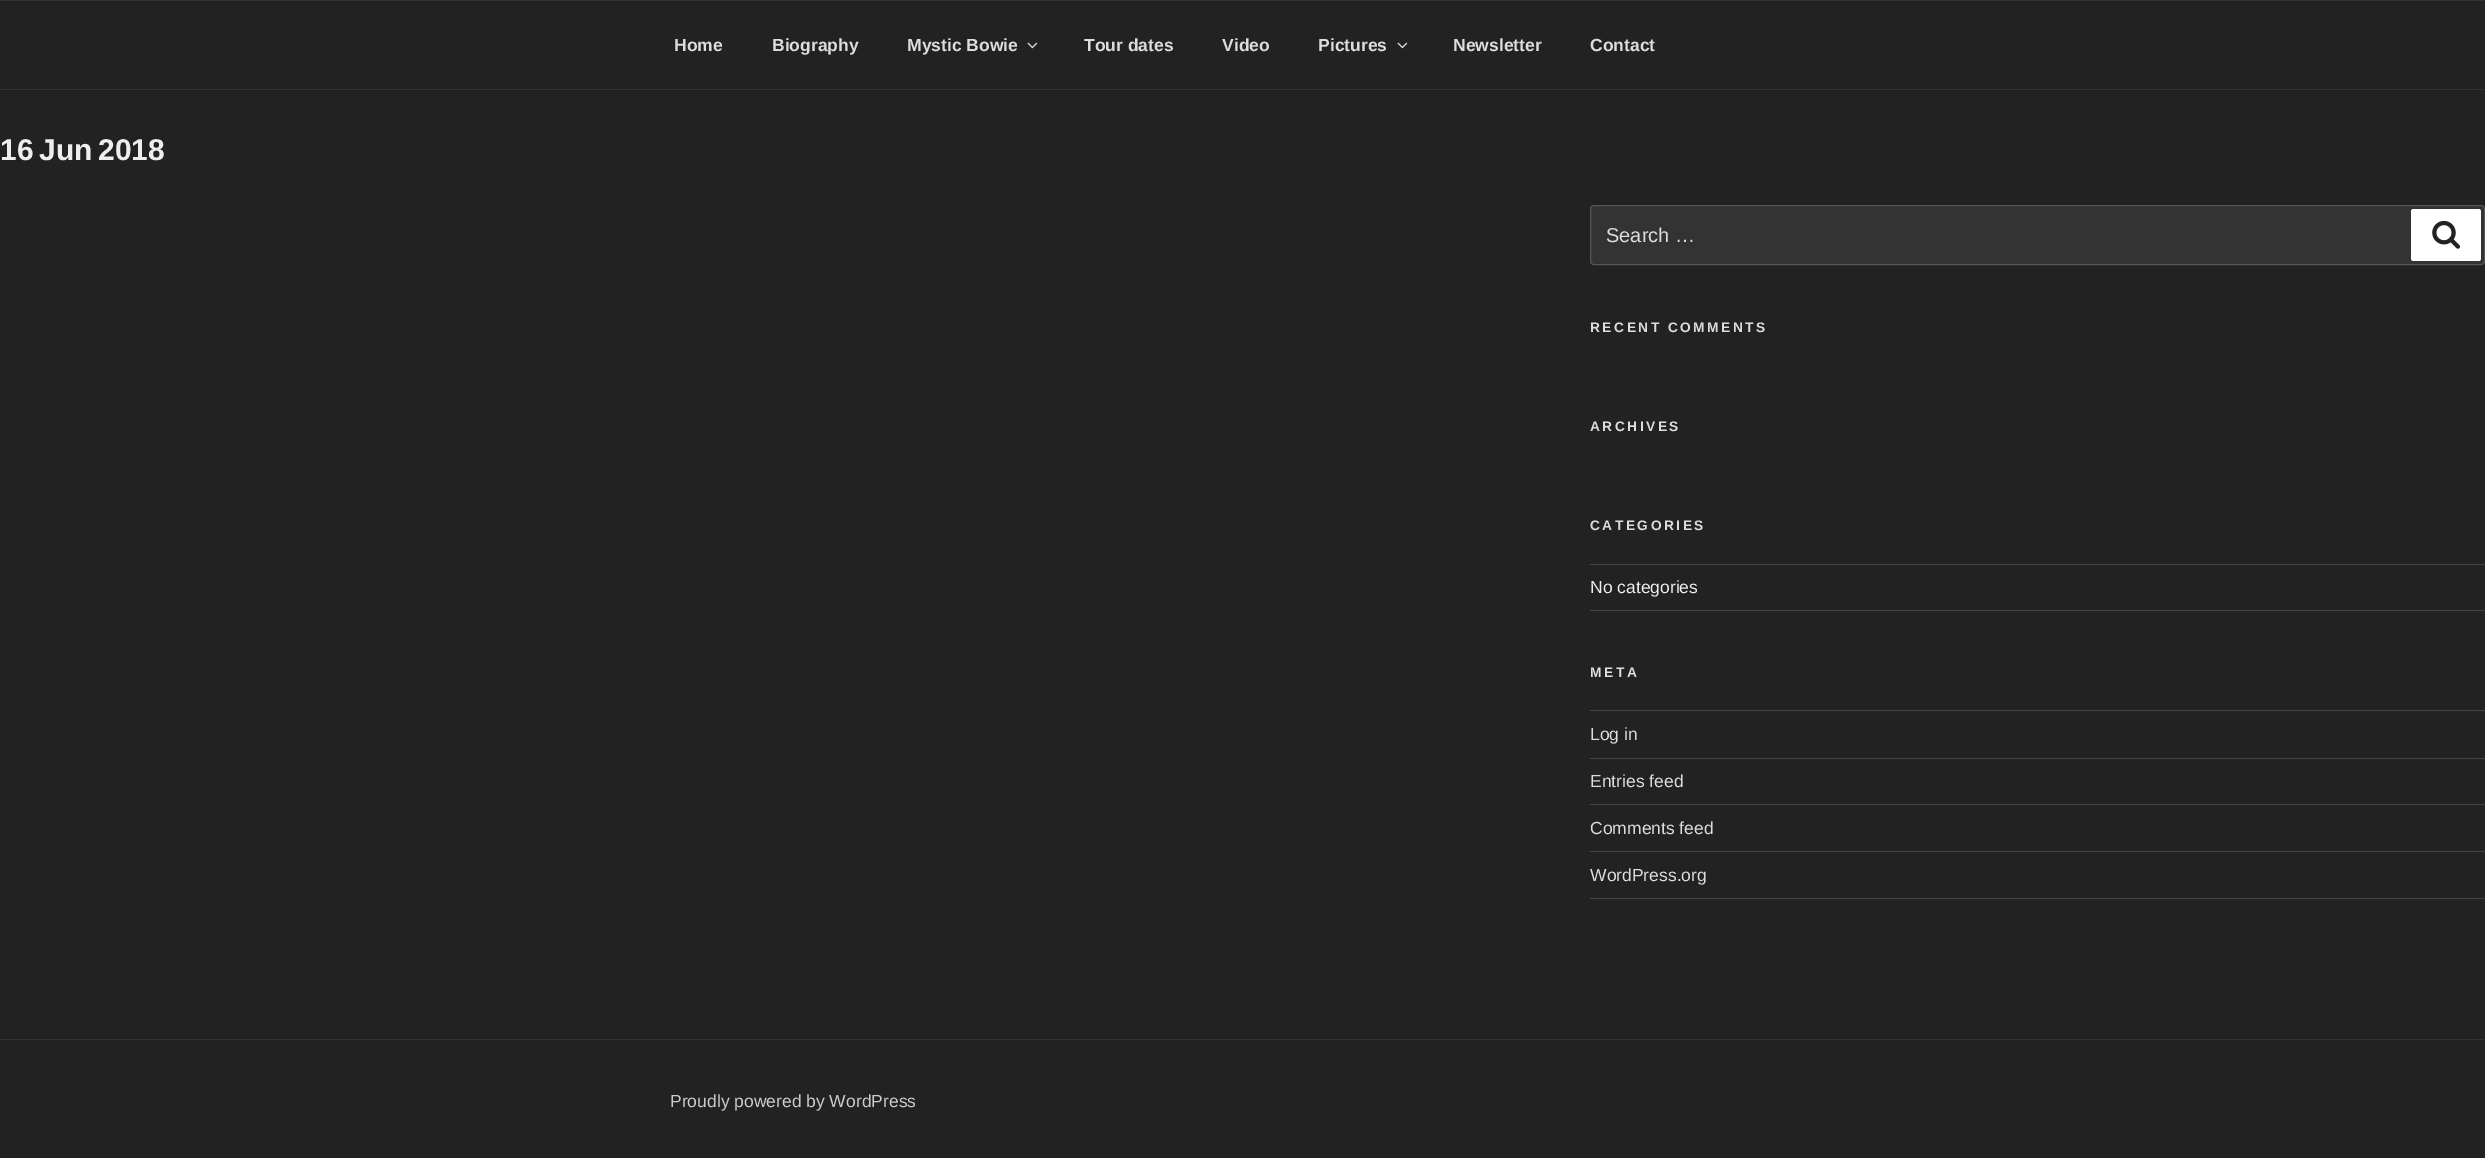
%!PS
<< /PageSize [2485 1158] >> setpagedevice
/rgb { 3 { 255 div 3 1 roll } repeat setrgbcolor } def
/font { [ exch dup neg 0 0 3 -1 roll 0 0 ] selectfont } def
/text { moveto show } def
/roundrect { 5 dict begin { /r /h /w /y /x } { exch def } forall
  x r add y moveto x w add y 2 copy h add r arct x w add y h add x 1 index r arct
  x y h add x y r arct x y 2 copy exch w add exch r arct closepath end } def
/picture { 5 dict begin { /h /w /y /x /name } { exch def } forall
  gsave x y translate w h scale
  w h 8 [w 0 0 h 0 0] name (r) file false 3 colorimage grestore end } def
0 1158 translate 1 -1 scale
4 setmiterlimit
34 34 34 rgb
0 0 2485 1158 rectfill
51 51 51 rgb
0 0 2485 1 rectfill
0 89 2485 1 rectfill
(img_01.rgb) 1027 42 11 7 picture
(img_01.rgb) 1397 42 11 7 picture
1590.5 205.5 894 59 3.5 roundrect gsave fill grestore
85 85 85 rgb
stroke
255 255 255 rgb
2411 209 70 52 2.5 roundrect fill
(img_02.rgb) 2432 220 28 29 picture
68 68 68 rgb
1590 564 895 1 rectfill
1590 610 895 1 rectfill
1590 710 895 1 rectfill
1590 758 895 1 rectfill
1590 804 895 1 rectfill
1590 851 895 1 rectfill
1590 898 895 1 rectfill
51 51 51 rgb
0 1039 2485 1 rectfill
/LiberationSans-Bold 17.5 font
221 221 221 rgb
(Home) 674 51 text
(Biography) 772 51 text
(Mystic Bowie) 907 51 text
(Tour dates) 1084 51 text
(Video) 1222 51 text
(Pictures) 1318 51 text
(Newsletter) 1453 51 text
(Contact) 1590 51 text
/LiberationSans-Bold 30 font
238 238 238 rgb
(16) 0 160 text
(Jun) 39 160 text
(2018) 98 160 text
/LiberationSans-Regular 20 font
221 221 221 rgb
(Search …) 1606 242 text
/LiberationSans-Bold 13.75 font
1590 332 moveto 2.5 0 (RECENT COMMENTS) ashow
1590 431 moveto 2.5 0 (ARCHIVES) ashow
1590 530 moveto 2.5 0 (CATEGORIES) ashow
/LiberationSans-Regular 17.5 font
238 238 238 rgb
(No categories) 1590 593 text
/LiberationSans-Bold 13.75 font
221 221 221 rgb
1590 677 moveto 2.5 0 (META) ashow
/LiberationSans-Regular 17.5 font
(Log in) 1590 740 text
(Entries feed) 1590 787 text
(Comments feed) 1590 834 text
(WordPress.org) 1590 881 text
204 204 204 rgb
(Proudly powered by WordPress) 670 1107 text
showpage
